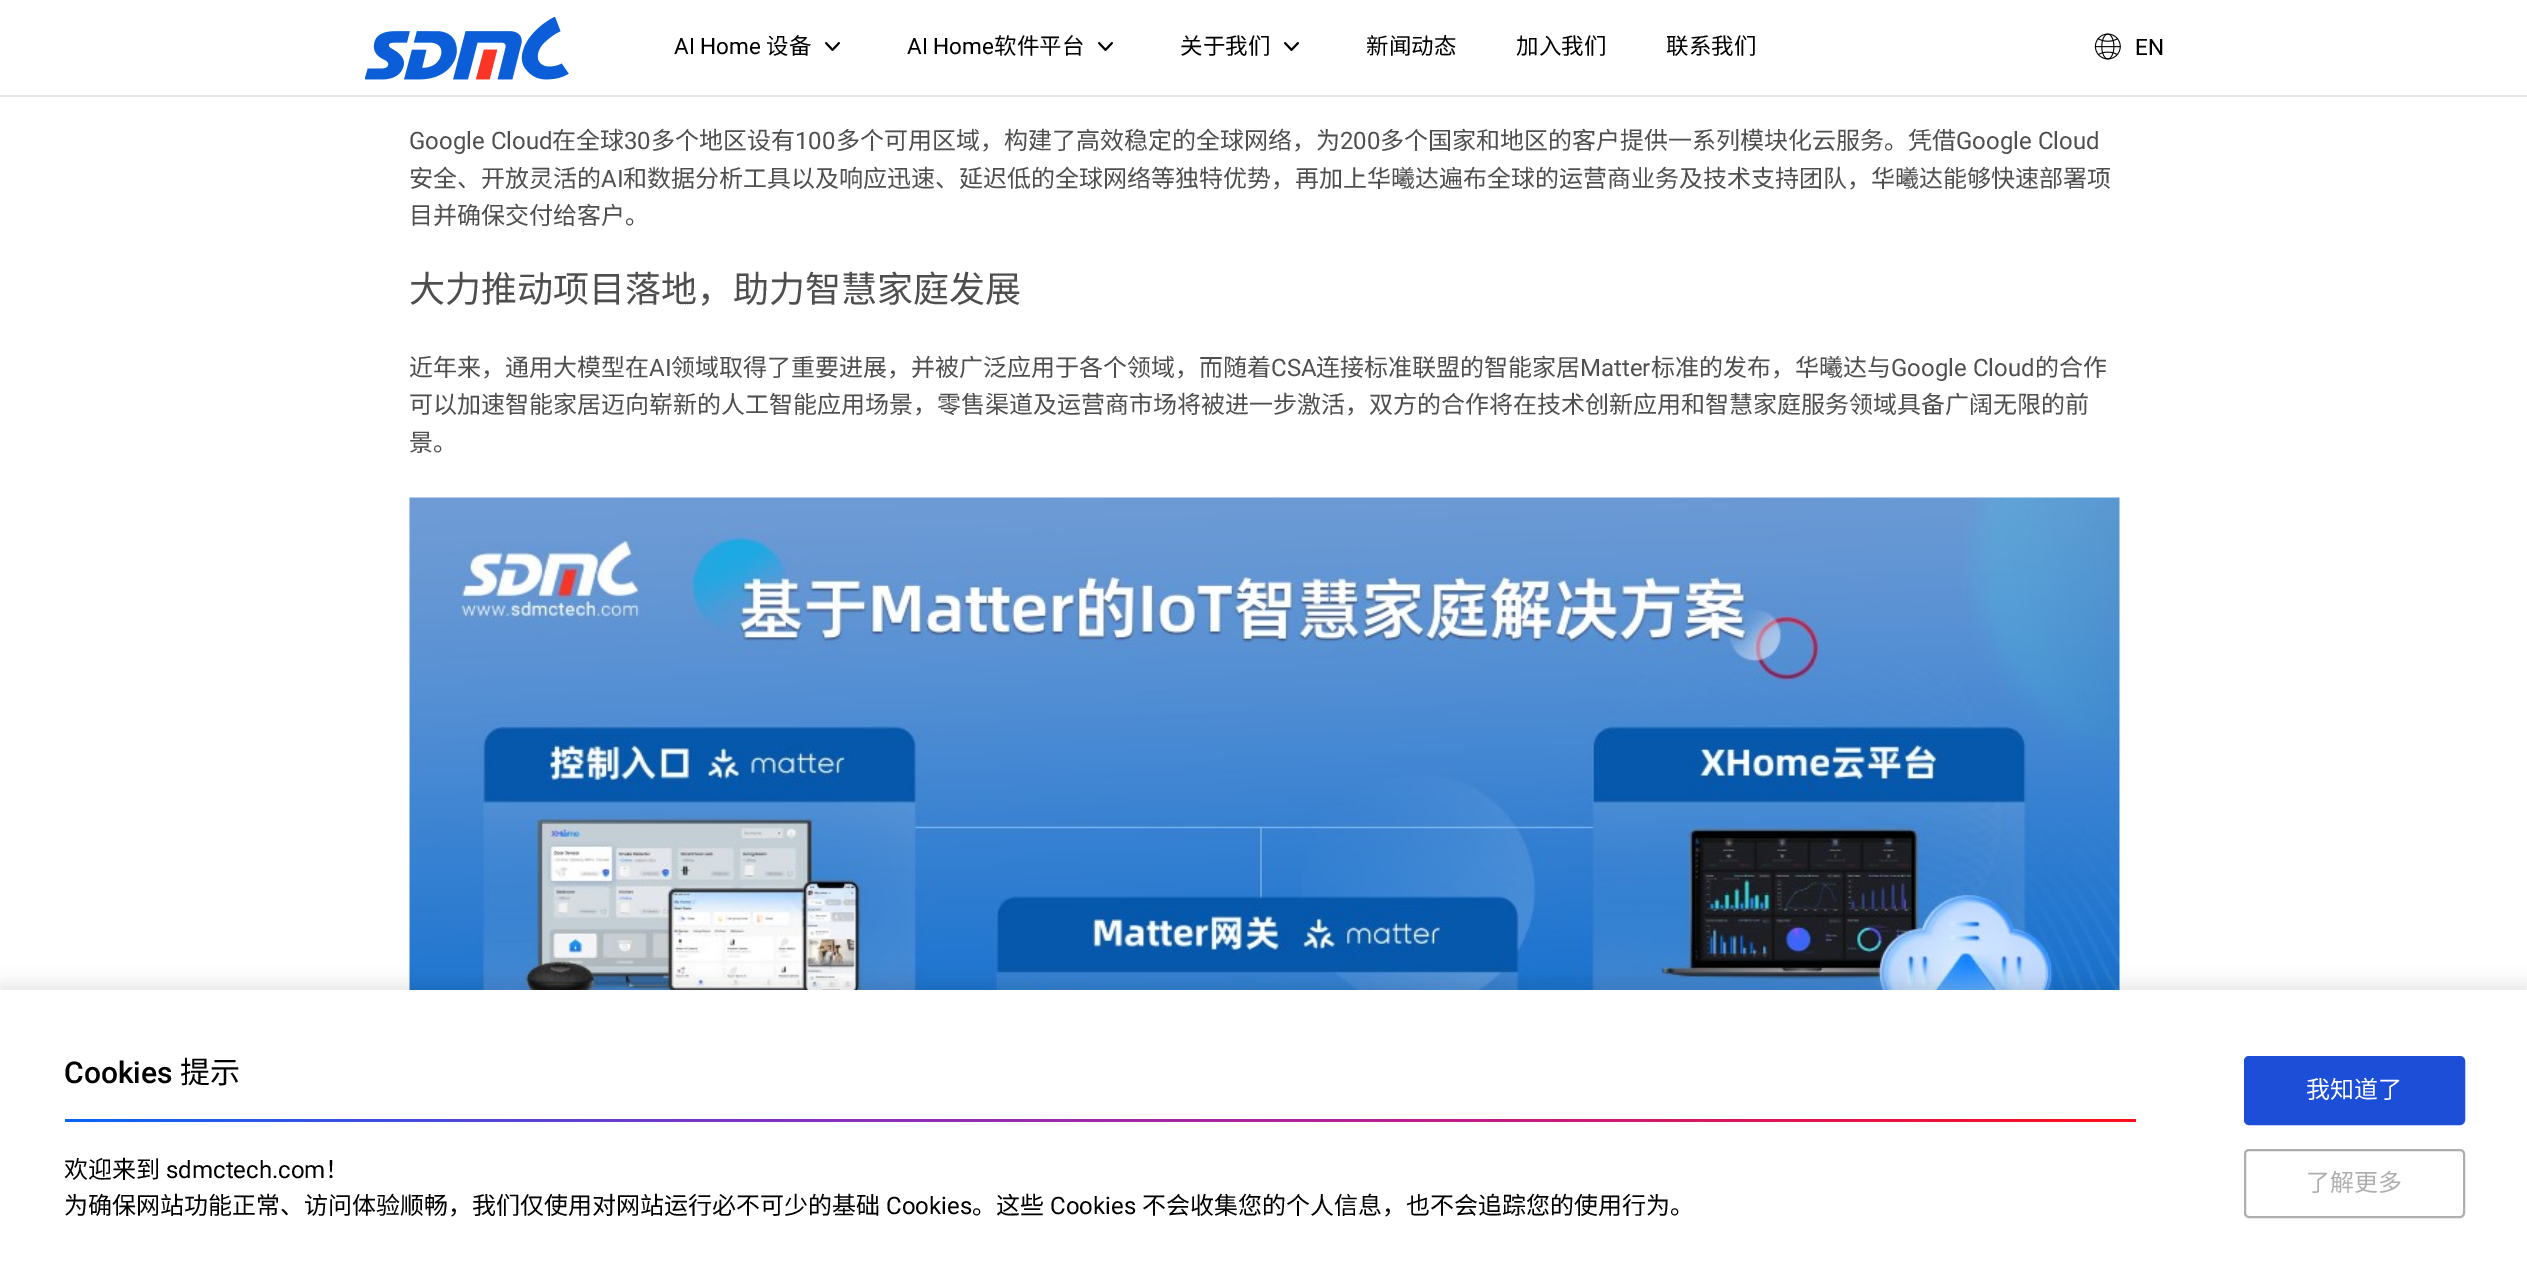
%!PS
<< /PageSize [2527 1283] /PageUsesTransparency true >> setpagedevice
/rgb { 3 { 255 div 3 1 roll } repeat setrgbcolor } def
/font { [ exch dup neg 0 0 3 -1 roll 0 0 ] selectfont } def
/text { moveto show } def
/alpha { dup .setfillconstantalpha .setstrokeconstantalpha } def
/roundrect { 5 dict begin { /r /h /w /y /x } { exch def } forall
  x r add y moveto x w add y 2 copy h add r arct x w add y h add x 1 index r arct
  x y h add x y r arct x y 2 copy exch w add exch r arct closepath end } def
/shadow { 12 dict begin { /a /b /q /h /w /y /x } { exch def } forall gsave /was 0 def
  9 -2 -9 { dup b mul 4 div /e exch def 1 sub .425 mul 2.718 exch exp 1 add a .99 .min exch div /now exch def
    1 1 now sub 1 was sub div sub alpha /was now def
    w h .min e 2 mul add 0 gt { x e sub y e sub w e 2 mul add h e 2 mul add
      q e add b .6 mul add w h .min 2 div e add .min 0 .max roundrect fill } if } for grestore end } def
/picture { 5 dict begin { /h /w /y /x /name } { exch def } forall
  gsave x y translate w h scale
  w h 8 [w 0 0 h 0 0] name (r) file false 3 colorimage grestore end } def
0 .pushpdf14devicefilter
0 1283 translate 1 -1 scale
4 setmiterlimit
255 255 255 rgb
0 0 2527 1283 rectfill
229 231 235 rgb
0 95 2527 2 rectfill
(img_01.rgb) 365 17 204 63 picture
(img_02.rgb) 825 42 15 9 picture
(img_02.rgb) 1098 42 15 9 picture
(img_02.rgb) 1284 42 15 9 picture
(img_03.rgb) 2094 33 27 27 picture
(img_04.rgb) 409 497 1711 493 picture
0 0 0 rgb
0 984 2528 294 0 9 0.1 shadow
255 255 255 rgb
0 990 2527 293 rectfill
gsave 65 1119 moveto 2071 0 rlineto 0 3 rlineto -2071 0 rlineto closepath clip newpath
<< /ShadingType 2 /ColorSpace /DeviceRGB /Coords [65 1121 2136 1121] /Extend [true true] /Function << /FunctionType 3 /Domain [0 1] /Functions [<< /FunctionType 2 /Domain [0 1] /C0 [0.031 0.392 0.973] /C1 [0.498 0.2 0.761] /N 1 >> << /FunctionType 2 /Domain [0 1] /C0 [0.498 0.2 0.761] /C1 [0.749 0.11 0.545] /N 1 >> << /FunctionType 2 /Domain [0 1] /C0 [0.749 0.11 0.545] /C1 [1 0.055 0.102] /N 1 >>] /Bounds [0.33 0.67] /Encode [0 1 0 1 0 1] >> >> shfill grestore
29 78 216 rgb
2245 1057 219 67 4 roundrect gsave fill grestore
2 setlinewidth
stroke
175 174 174 rgb
2245 1150 219 67 4 roundrect stroke
/Roboto-Regular 22.5 font
0 0 0 rgb
(AI Home) 674 54 text
/NotoSansCJKSC-Regular 22.5 font
(设备) 766 54 text
/Roboto-Regular 22.5 font
(AI Home) 907 54 text
/NotoSansCJKSC-Regular 22.5 font
(软件平台) 994 54 text
(关于我们) 1180 54 text
(新闻动态) 1366 54 text
(加入我们) 1516 54 text
(联系我们) 1666 54 text
/Roboto-Regular 22.5 font
(EN) 2135 55 text
/Roboto-Regular 24 font
78 78 78 rgb
(Google Cloud) 409 149 text
/NotoSansCJKSC-Regular 24 font
(在全球) 552 149 text
/Roboto-Regular 24 font
(30) 624 149 text
/NotoSansCJKSC-Regular 24 font
(多个地区设有) 651 149 text
/Roboto-Regular 24 font
(100) 795 149 text
/NotoSansCJKSC-Regular 24 font
(多个可用区域，构建了高效稳定的全球网络，为) 836 149 text
/Roboto-Regular 24 font
(200) 1340 149 text
/NotoSansCJKSC-Regular 24 font
(多个国家和地区的客户提供一系列模块化云服务。凭借) 1380 149 text
/Roboto-Regular 24 font
(Google Cloud) 1956 149 text
/NotoSansCJKSC-Regular 24 font
(安全、开放灵活的) 409 187 text
/Roboto-Regular 24 font
(AI) 601 187 text
/NotoSansCJKSC-Regular 24 font
(和数据分析工具以及响应迅速、延迟低的全球网络等独特优势，再加上华曦达遍布全球的运营商业务及技术支持团队，华曦达能够快速部署项) 623 187 text
(目并确保交付给客户。) 409 224 text
/NotoSansCJKSC-Regular 36 font
(大力推动项目落地，助力智慧家庭发展) 409 302 text
/NotoSansCJKSC-Regular 24 font
(近年来，通用大模型在) 409 376 text
/Roboto-Regular 24 font
(AI) 649 376 text
/NotoSansCJKSC-Regular 24 font
(领域取得了重要进展，并被广泛应用于各个领域，而随着) 671 376 text
/Roboto-Regular 24 font
(CSA) 1271 376 text
/NotoSansCJKSC-Regular 24 font
(连接标准联盟的智能家居) 1316 376 text
/Roboto-Regular 24 font
(Matter) 1580 376 text
/NotoSansCJKSC-Regular 24 font
(标准的发布，华曦达与) 1651 376 text
/Roboto-Regular 24 font
(Google Cloud) 1891 376 text
/NotoSansCJKSC-Regular 24 font
(的合作) 2035 376 text
(可以加速智能家居迈向崭新的人工智能应用场景，零售渠道及运营商市场将被进一步激活，双方的合作将在技术创新应用和智慧家庭服务领域具备广阔无限的前) 409 413 text
(景。) 409 451 text
/Roboto-Medium 30 font
0 0 0 rgb
(Cookies) 64 1083 text
/NotoSansCJKSC-Regular 30 font
(提示) 180 1083 text
/NotoSansCJKSC-Regular 24 font
(欢迎来到) 64 1178 text
/Roboto-Regular 24 font
(sdmctech.com) 166 1178 text
/NotoSansCJKSC-Regular 24 font
(！) 325 1178 text
(为确保网站功能正常、访问体验顺畅，我们仅使用对网站运行必不可少的基础) 64 1214 text
/Roboto-Regular 24 font
(Cookies) 886 1214 text
/NotoSansCJKSC-Regular 24 font
(。这些) 972 1214 text
/Roboto-Regular 24 font
(Cookies) 1050 1214 text
/NotoSansCJKSC-Regular 24 font
(不会收集您的个人信息，也不会追踪您的使用行为。) 1142 1214 text
255 255 255 rgb
(我知道了) 2306 1098 text
175 174 174 rgb
(了解更多) 2306 1191 text
.poppdf14devicefilter showpage
